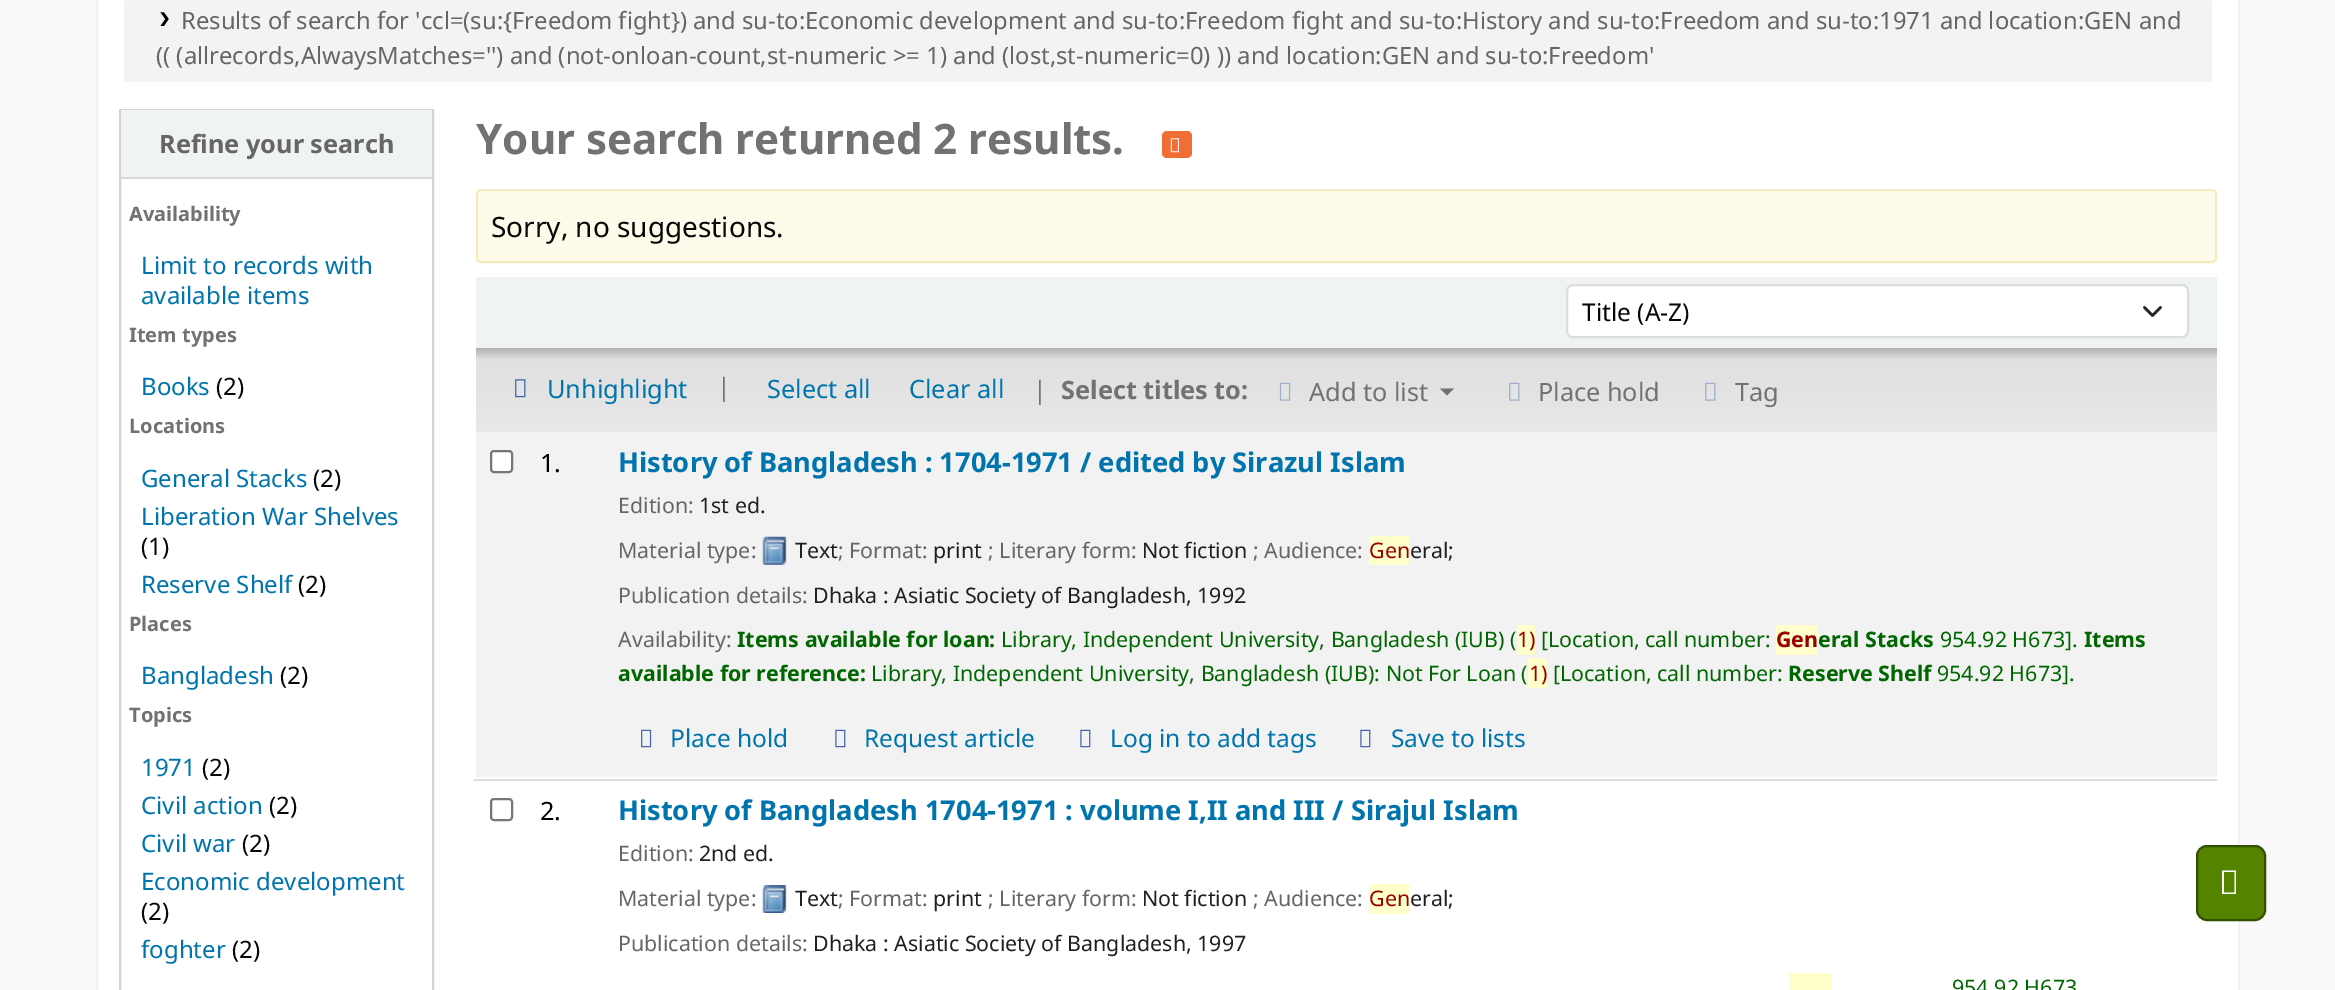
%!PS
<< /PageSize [2335 990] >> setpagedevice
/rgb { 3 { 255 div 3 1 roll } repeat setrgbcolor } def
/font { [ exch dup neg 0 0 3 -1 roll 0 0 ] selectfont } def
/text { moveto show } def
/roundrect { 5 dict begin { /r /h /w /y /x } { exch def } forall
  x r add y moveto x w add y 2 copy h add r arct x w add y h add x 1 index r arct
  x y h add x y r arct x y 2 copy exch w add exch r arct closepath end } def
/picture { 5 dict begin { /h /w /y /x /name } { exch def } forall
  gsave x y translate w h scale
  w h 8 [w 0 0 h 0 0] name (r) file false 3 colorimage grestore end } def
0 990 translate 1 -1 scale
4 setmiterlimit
252 249 252 rgb
0 0 2335 990 rectfill
255 255 255 rgb
97 -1 moveto 2142 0 rlineto 0 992 rlineto -2142 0 rlineto closepath gsave fill grestore
240 243 243 rgb
2 setlinewidth
stroke
243 243 243 rgb
124 0 2088 82 rectfill
(img_01.rgb) 160 12 9 14 picture
210 210 207 rgb
120 110 313 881 rectstroke
240 243 243 rgb
121 110 311 67 rectfill
216 216 216 rgb
121 177 311 2 rectfill
240 109 52 rgb
1162 131 30 27 5 roundrect fill
(img_02.rgb) 1170 138 9 15 picture
255 251 234 rgb
477 190 1739 72 4 roundrect gsave fill grestore
244 236 190 rgb
stroke
240 243 243 rgb
476 277 1741 71 rectfill
255 255 255 rgb
1566 284 623 54 7 roundrect fill
37 37 37 rgb
2.6 setlinewidth
1 setlinecap
1 setlinejoin
2144.5 307.5 moveto 8 8 rlineto 8 -8 rlineto stroke
221 221 221 rgb
2 setlinewidth
0 setlinecap
0 setlinejoin
1567 285 621 52 6 roundrect stroke
gsave 476 348 moveto 1741 0 rlineto 0 84 rlineto -1741 0 rlineto closepath clip newpath
<< /ShadingType 2 /ColorSpace /DeviceRGB /Coords [1347 348 1347 432] /Extend [true true] /Function << /FunctionType 3 /Domain [0 1] /Functions [<< /FunctionType 2 /Domain [0 1] /C0 [0.698 0.698 0.698] /C1 [0.878 0.878 0.878] /N 1 >> << /FunctionType 2 /Domain [0 1] /C0 [0.878 0.878 0.878] /C1 [0.91 0.91 0.91] /N 1 >>] /Bounds [0.14] /Encode [0 1 0 1] >> >> shfill grestore
(img_03.rgb) 515 379 11 19 picture
(img_04.rgb) 1279 382 12 19 picture
113 113 113 rgb
1440 388.5 moveto 14 0 rlineto -7 7 rlineto closepath fill
(img_05.rgb) 1509 382 11 19 picture
(img_05.rgb) 1705 382 11 19 picture
242 242 242 rgb
476 432 1741 345 rectfill
255 255 255 rgb
491 451 21 21 3 roundrect gsave fill grestore
118 118 118 rgb
stroke
221 221 221 rgb
474 779 1743 2 rectfill
(img_06.rgb) 762 536 25 29 picture
255 255 204 rgb
1369 536 40 29 rectfill
1517 625 18 30 rectfill
1776 625 42 30 rectfill
1528 658 19 30 rectfill
(img_07.rgb) 641 729 11 19 picture
(img_08.rgb) 835 729 11 19 picture
(img_08.rgb) 1080 729 11 19 picture
(img_08.rgb) 1360 729 11 19 picture
118 118 118 rgb
491 799 21 21 3 roundrect stroke
(img_09.rgb) 762 885 25 28 picture
255 255 204 rgb
1369 884 40 30 rectfill
1789 973 42 17 rectfill
84 131 0 rgb
2197 846 68 74 10 roundrect gsave fill grestore
51 80 0 rgb
stroke
255 255 255 rgb
2222 894 moveto 0 -23.5 rlineto 14 0 rlineto 0 23.5 rlineto closepath 2224 892.5 moveto 10.5 0 rlineto 0 -20.5 rlineto -10.5 0 rlineto closepath fill
/NotoSans-Regular 23.8 font
102 102 102 rgb
(Results of search for 'ccl=\(su:{Freedom fight}\) and su-to:Economic development and su-to:Freedom fight and su-to:History and su-to:Freedom and su-to:1971 and location:GEN and) 181 29 text
(\(\( \(allrecords,AlwaysMatches=''\) and \(not-onloan-count,st-numeric >= 1\) and \(lost,st-numeric=0\) \)\) and location:GEN and su-to:Freedom') 156 64 text
/NotoSans-Bold 25.25 font
(Refine your search) 159 153 text
/NotoSans-Bold 20 font
114 114 114 rgb
(Availability) 129 221 text
/NotoSans-Regular 24 font
0 116 173 rgb
(Limit to records with) 141 274 text
(available items) 141 304 text
/NotoSans-Bold 20 font
114 114 114 rgb
(Item types) 129 342 text
/NotoSans-Regular 24 font
0 116 173 rgb
(Books) 141 395 text
7 7 7 rgb
(\(2\)) 216 395 text
/NotoSans-Bold 20 font
114 114 114 rgb
(Locations) 129 433 text
/NotoSans-Regular 24 font
0 116 173 rgb
(General Stacks) 141 487 text
7 7 7 rgb
(\(2\)) 313 487 text
0 116 173 rgb
(Liberation War Shelves) 141 525 text
7 7 7 rgb
(\(1\)) 141 555 text
0 116 173 rgb
(Reserve Shelf) 141 593 text
7 7 7 rgb
(\(2\)) 298 593 text
/NotoSans-Bold 20 font
114 114 114 rgb
(Places) 129 631 text
/NotoSans-Regular 24 font
0 116 173 rgb
(Bangladesh) 141 684 text
7 7 7 rgb
(\(2\)) 280 684 text
/NotoSans-Bold 20 font
114 114 114 rgb
(Topics) 129 722 text
/NotoSans-Regular 24 font
0 116 173 rgb
(1971) 141 776 text
7 7 7 rgb
(\(2\)) 202 776 text
0 116 173 rgb
(Civil action) 141 814 text
7 7 7 rgb
(\(2\)) 269 814 text
0 116 173 rgb
(Civil war) 141 852 text
7 7 7 rgb
(\(2\)) 242 852 text
0 116 173 rgb
(Economic development) 141 890 text
7 7 7 rgb
(\(2\)) 141 920 text
0 116 173 rgb
(foghter) 141 958 text
7 7 7 rgb
(\(2\)) 232 958 text
/NotoSans-Bold 42 font
114 114 114 rgb
(Your search returned 2 results.) 476 154 text
/NotoSans-Regular 28 font
7 7 7 rgb
(Sorry, no suggestions.) 491 237 text
/NotoSans-Regular 24.5 font
(Title \(A-Z\)) 1582 321 text
/NotoSans-Regular 25.25 font
0 116 173 rgb
(Unhighlight) 547 398 text
108 117 125 rgb
(|) 717 396 text
0 116 173 rgb
(Select all) 767 398 text
(Clear all) 909 398 text
108 117 125 rgb
(|) 1033 399 text
/NotoSans-Bold 25.25 font
114 114 114 rgb
(Select titles to:) 1061 399 text
/NotoSans-Regular 25.25 font
(Add to list) 1309 401 text
(Place hold) 1538 401 text
(Tag) 1735 401 text
0 0 0 rgb
(1.) 540 472 text
/NotoSans-Bold 27.25 font
0 116 173 rgb
(History of Bangladesh : 1704-1971 / edited by Sirazul Islam) 618 472 text
/NotoSans-Regular 21.4 font
102 102 102 rgb
(Edition:) 618 513 text
32 32 32 rgb
(1st ed.) 699 513 text
102 102 102 rgb
(Material type:) 618 558 text
32 32 32 rgb
(Text) 795 558 text
102 102 102 rgb
(; Format:) 838 558 text
32 32 32 rgb
(print) 933 558 text
102 102 102 rgb
(; Literary form:) 988 558 text
32 32 32 rgb
(Not fiction) 1142 558 text
102 102 102 rgb
(; Audience:) 1253 558 text
153 0 0 rgb
(Gen) 1369 558 text
32 32 32 rgb
(eral;) 1410 558 text
102 102 102 rgb
(Publication details:) 618 603 text
32 32 32 rgb
(Dhaka : Asiatic Society of Bangladesh, 1992) 813 603 text
102 102 102 rgb
(Availability:) 618 647 text
/NotoSans-Bold 21.4 font
0 102 0 rgb
(Items available for loan:) 737 647 text
/NotoSans-Regular 21.4 font
(Library, Independent University, Bangladesh \(IUB\) \() 1001 647 text
153 0 0 rgb
(1\)) 1517 647 text
0 102 0 rgb
([Location, call number:) 1541 647 text
/NotoSans-Bold 21.4 font
153 0 0 rgb
(Gen) 1776 647 text
0 102 0 rgb
(eral Stacks) 1818 647 text
/NotoSans-Regular 21.4 font
(954.92 H673].) 1940 647 text
/NotoSans-Bold 21.4 font
(Items) 2084 647 text
(available for reference:) 618 681 text
/NotoSans-Regular 21.4 font
(Library, Independent University, Bangladesh \(IUB\): Not For Loan \() 871 681 text
153 0 0 rgb
(1\)) 1529 681 text
0 102 0 rgb
([Location, call number:) 1553 681 text
/NotoSans-Bold 21.4 font
(Reserve Shelf) 1788 681 text
/NotoSans-Regular 21.4 font
(954.92 H673].) 1937 681 text
/NotoSans-Regular 24.5 font
0 116 173 rgb
(Place hold) 670 747 text
(Request article) 864 747 text
(Log in to add tags) 1110 747 text
(Save to lists) 1391 747 text
/NotoSans-Regular 25.25 font
0 0 0 rgb
(2.) 540 820 text
/NotoSans-Bold 27.25 font
0 116 173 rgb
(History of Bangladesh 1704-1971 : volume I,II and III / Sirajul Islam) 618 820 text
/NotoSans-Regular 21.4 font
102 102 102 rgb
(Edition:) 618 861 text
32 32 32 rgb
(2nd ed.) 699 861 text
102 102 102 rgb
(Material type:) 618 906 text
32 32 32 rgb
(Text) 795 906 text
102 102 102 rgb
(; Format:) 838 906 text
32 32 32 rgb
(print) 933 906 text
102 102 102 rgb
(; Literary form:) 988 906 text
32 32 32 rgb
(Not fiction) 1142 906 text
102 102 102 rgb
(; Audience:) 1253 906 text
153 0 0 rgb
(Gen) 1369 906 text
32 32 32 rgb
(eral;) 1410 906 text
102 102 102 rgb
(Publication details:) 618 951 text
32 32 32 rgb
(Dhaka : Asiatic Society of Bangladesh, 1997) 813 951 text
0 102 0 rgb
(954.92 H673) 1952 995 text
showpage
